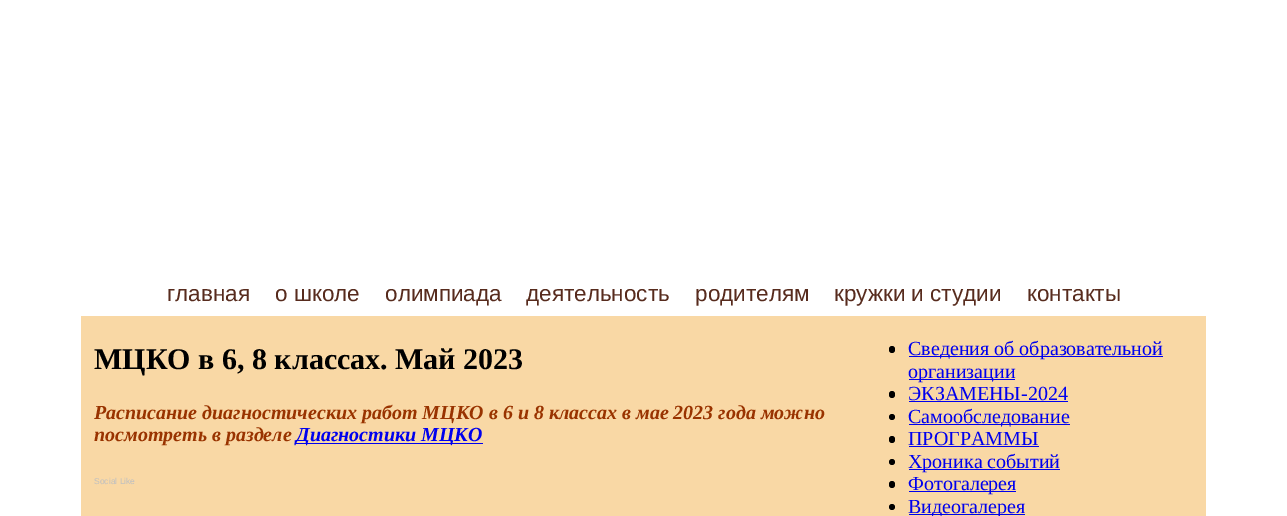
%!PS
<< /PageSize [1287 516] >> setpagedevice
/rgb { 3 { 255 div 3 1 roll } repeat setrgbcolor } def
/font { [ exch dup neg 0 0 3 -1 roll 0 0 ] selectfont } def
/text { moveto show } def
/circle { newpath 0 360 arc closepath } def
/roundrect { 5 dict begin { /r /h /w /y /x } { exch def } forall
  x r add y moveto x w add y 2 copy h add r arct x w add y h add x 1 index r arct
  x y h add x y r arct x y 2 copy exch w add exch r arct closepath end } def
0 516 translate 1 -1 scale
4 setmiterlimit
255 255 255 rgb
0 0 1287 516 rectfill
249 216 165 rgb
81 316 1125 200 rectfill
0 0 238 rgb
296 443 187 1 rectfill
0 0 0 rgb
889 346 6 7 3 roundrect fill
0 0 238 rgb
909 356 254 1 rectfill
909 379 106 1 rectfill
0 0 0 rgb
889 391 6 7 3 roundrect fill
0 0 238 rgb
909 401 159 1 rectfill
0 0 0 rgb
892 417 3 circle fill
0 0 238 rgb
909 424 161 1 rectfill
0 0 0 rgb
889 436 6 7 3 roundrect fill
0 0 238 rgb
909 446 130 1 rectfill
0 0 0 rgb
892 462 3 circle fill
0 0 238 rgb
909 469 151 1 rectfill
0 0 0 rgb
889 481 6 7 3 roundrect fill
0 0 238 rgb
909 491 107 1 rectfill
0 0 0 rgb
892 507 3 circle fill
0 0 238 rgb
909 514 116 1 rectfill
/LiberationSans-Regular 22.5 font
87 43 29 rgb
(главная) 167 301 text
(о школе) 275 301 text
(олимпиада) 385 301 text
(деятельность) 526 301 text
(родителям) 695 301 text
(кружки и студии) 834 301 text
(контакты) 1027 301 text
/LiberationSerif-Bold 30 font
0 0 0 rgb
(МЦКО в 6, 8 классах. Май 2023) 94 369 text
/LiberationSerif-BoldItalic 20 font
153 51 0 rgb
(Расписание диагностических работ МЦКО в 6 и 8 классах в мае 2023 года можно) 94 419 text
(посмотреть в разделе) 94 441 text
0 0 238 rgb
(Диагностики МЦКО) 296 441 text
/LiberationSans-Regular 8.5 font
192 192 192 rgb
(Social Like) 94 484 text
/LiberationSerif-Regular 20 font
0 0 238 rgb
(Сведения об образовательной) 908 355 text
(организации) 908 378 text
(ЭКЗАМЕНЫ-2024) 908 400 text
(Самообследование) 908 423 text
(ПРОГРАММЫ) 908 445 text
(Хроника событий) 908 468 text
(Фотогалерея) 908 490 text
(Видеогалерея) 908 513 text
showpage
